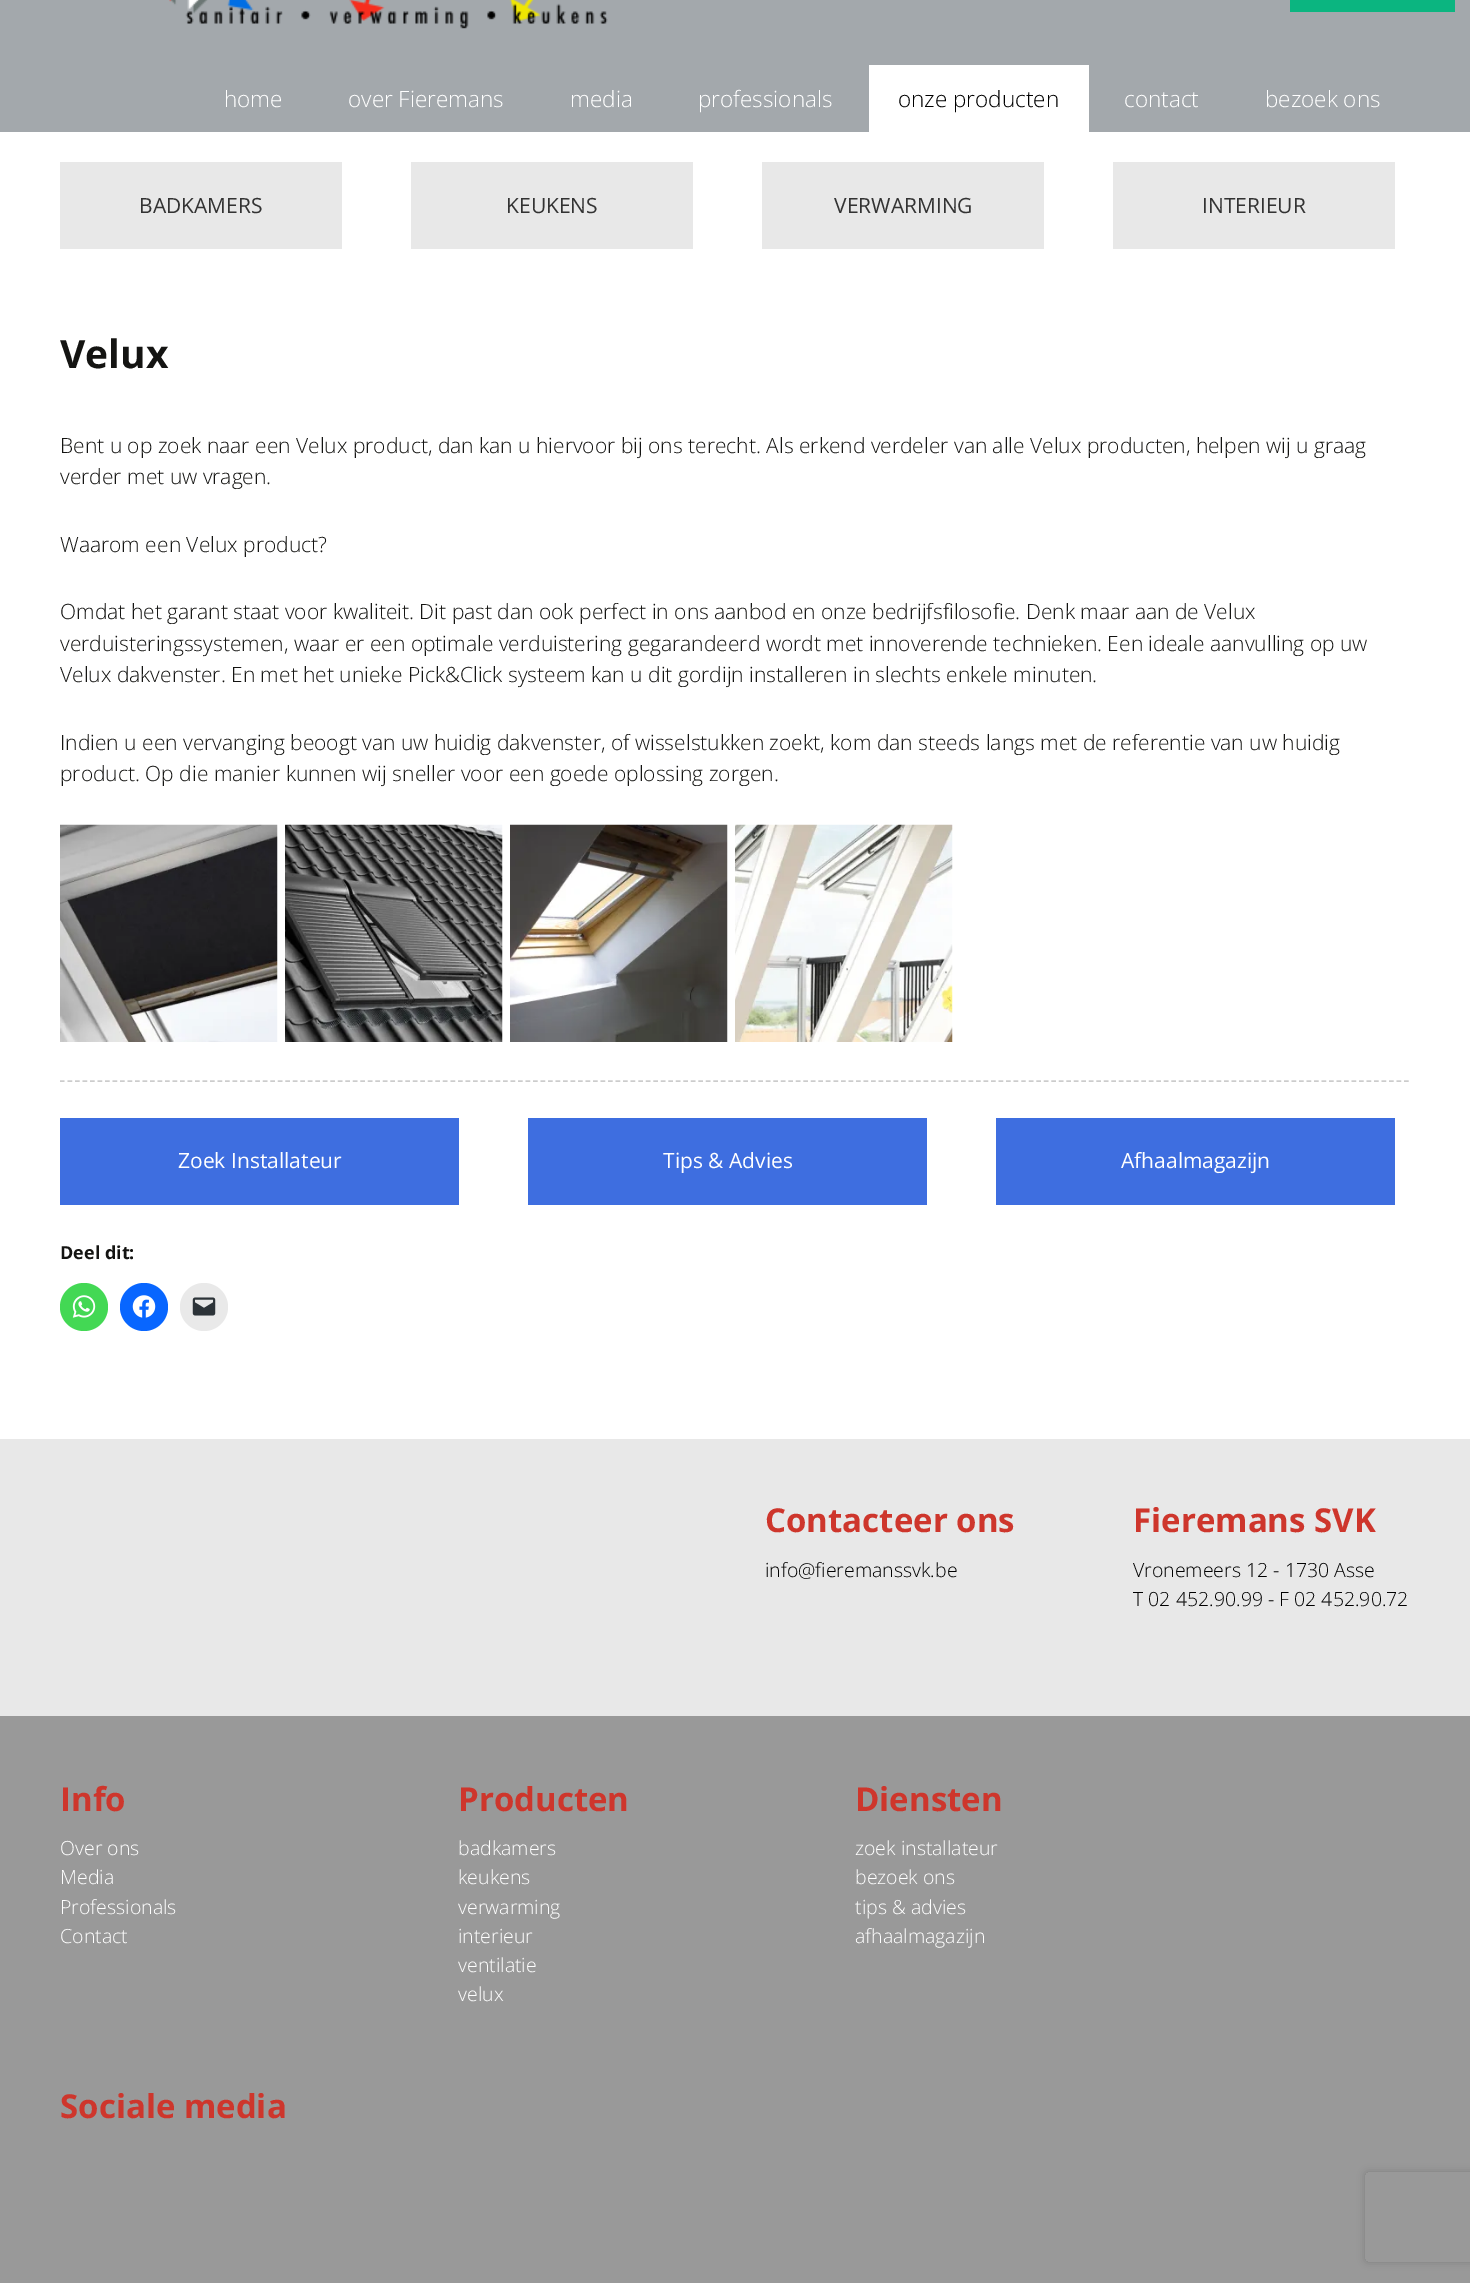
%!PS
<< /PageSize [1470 2283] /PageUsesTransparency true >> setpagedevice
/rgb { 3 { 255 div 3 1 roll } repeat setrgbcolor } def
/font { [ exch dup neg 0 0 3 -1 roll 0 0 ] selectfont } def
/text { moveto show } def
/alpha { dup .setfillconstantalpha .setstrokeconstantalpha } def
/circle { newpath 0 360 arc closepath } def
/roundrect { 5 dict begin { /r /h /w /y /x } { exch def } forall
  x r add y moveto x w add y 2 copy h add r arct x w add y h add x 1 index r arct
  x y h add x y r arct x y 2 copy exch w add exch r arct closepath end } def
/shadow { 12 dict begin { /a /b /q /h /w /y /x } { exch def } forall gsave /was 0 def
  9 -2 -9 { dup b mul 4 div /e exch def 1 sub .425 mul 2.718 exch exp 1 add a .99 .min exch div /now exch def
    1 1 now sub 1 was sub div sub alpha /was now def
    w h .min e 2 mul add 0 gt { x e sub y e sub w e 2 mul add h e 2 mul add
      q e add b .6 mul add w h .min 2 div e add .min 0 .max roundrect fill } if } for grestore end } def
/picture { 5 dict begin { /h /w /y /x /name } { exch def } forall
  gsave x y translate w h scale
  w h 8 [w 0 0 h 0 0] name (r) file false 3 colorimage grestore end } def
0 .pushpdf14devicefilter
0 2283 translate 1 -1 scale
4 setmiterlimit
255 255 255 rgb
0 0 1470 2283 rectfill
163 168 172 rgb
0 0 1470 132 rectfill
11 181 128 rgb
1290 0 165 12 rectfill
(img_01.rgb) 169 0 439 29 picture
255 255 255 rgb
869 65 220 67 rectfill
232 232 232 rgb
60 162 282 87 rectfill
411 162 282 87 rectfill
762 162 282 87 rectfill
1113 162 282 87 rectfill
(img_02.rgb) 60 824 218 218 picture
(img_03.rgb) 285 824 218 218 picture
(img_04.rgb) 510 824 218 218 picture
(img_05.rgb) 735 824 218 218 picture
204 204 204 rgb
1.5 setlinewidth
[4.5 3.01] 0 setdash
60 1081 moveto 1350 0 rlineto stroke
62 110 224 rgb
60 1118 399 87 rectfill
528 1118 399 87 rectfill
996 1118 399 87 rectfill
67 216 84 rgb
84 1307 24 circle fill
(img_06.rgb) 72 1295 24 23 picture
8 102 255 rgb
144 1307 24 circle fill
(img_07.rgb) 132 1295 24 23 picture
233 233 233 rgb
204 1307 24 circle fill
(img_08.rgb) 192 1297 24 19 picture
232 232 232 rgb
0 1439 1470 277 rectfill
153 153 153 rgb
0 1716 1470 567 rectfill
gsave
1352 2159 moveto 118 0 rlineto 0 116 rlineto -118 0 rlineto closepath 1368 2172 moveto 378 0 rlineto 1.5 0 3 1.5 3 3 rcurveto 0 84 rlineto 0 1.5 -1.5 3 -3 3 rcurveto -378 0 rlineto -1.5 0 -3 -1.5 -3 -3 rcurveto 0 -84 rlineto 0 -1.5 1.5 -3 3 -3 rcurveto closepath eoclip newpath
128 128 128 rgb
1365 2172 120 90 3 4 1 shadow
grestore
/OpenSans-Light 22.5 font
255 255 255 rgb
(home) 224 107 text
(over Fieremans) 348 107 text
(media) 570 107 text
(professionals) 698 107 text
0 0 0 rgb
(onze producten) 898 107 text
255 255 255 rgb
(contact) 1124 107 text
(bezoek ons) 1265 107 text
/OpenSans-Regular 21 font
51 51 51 rgb
(BADKAMERS) 139 213 text
(KEUKENS) 506 213 text
(VERWARMING) 834 213 text
(INTERIEUR) 1202 213 text
/OpenSans-Bold 39 font
20 20 18 rgb
(Velux) 60 368 text
/OpenSans-Light 21 font
(Bent u op zoek naar een Velux product, dan kan u hiervoor bij ons terecht. Als erkend verdeler van alle Velux producten, helpen wij u graag) 60 453 text
(verder met uw vragen.) 60 484 text
(Waarom een Velux product?) 60 552 text
(Omdat het garant staat voor kwaliteit. Dit past dan ook perfect in ons aanbod en onze bedrijfsfilosofie. Denk maar aan de Velux) 60 619 text
(verduisteringssystemen, waar er een optimale verduistering gegarandeerd wordt met innoverende technieken. Een ideale aanvulling op uw) 60 651 text
(Velux dakvenster. En met het unieke Pick&Click systeem kan u dit gordijn installeren in slechts enkele minuten.) 60 682 text
(Indien u een vervanging beoogt van uw huidig dakvenster, of wisselstukken zoekt, kom dan steeds langs met de referentie van uw huidig) 60 750 text
(product. Op die manier kunnen wij sneller voor een goede oplossing zorgen.) 60 781 text
/OpenSans-Regular 21 font
255 255 255 rgb
(Zoek Installateur) 178 1168 text
(Tips & Advies) 663 1168 text
(Afhaalmagazijn) 1121 1168 text
/OpenSans-Bold 18 font
20 20 18 rgb
(Deel dit:) 60 1259 text
/OpenSans-Bold 33 font
206 54 44 rgb
(Contacteer ons) 765 1532 text
/OpenSans-Light 19.5 font
0 0 0 rgb
(info@fieremanssvk.be) 765 1577 text
/OpenSans-Bold 33 font
206 54 44 rgb
(Fieremans SVK) 1133 1532 text
/OpenSans-Light 19.5 font
0 0 0 rgb
(Vronemeers 12 - 1730 Asse) 1133 1577 text
(T 02 452.90.99 - F 02 452.90.72) 1133 1606 text
/OpenSans-Bold 33 font
206 54 44 rgb
(Info) 60 1811 text
/OpenSans-Light 19.5 font
255 255 255 rgb
(Over ons) 60 1855 text
(Media) 60 1884 text
(Professionals) 60 1914 text
(Contact) 60 1943 text
/OpenSans-Bold 33 font
206 54 44 rgb
(Producten) 458 1811 text
/OpenSans-Light 19.5 font
255 255 255 rgb
(badkamers) 458 1855 text
(keukens) 458 1884 text
(verwarming) 458 1914 text
(interieur) 458 1943 text
(ventilatie) 458 1972 text
(velux) 458 2001 text
/OpenSans-Bold 33 font
206 54 44 rgb
(Diensten) 855 1811 text
/OpenSans-Light 19.5 font
255 255 255 rgb
(zoek installateur) 855 1855 text
(bezoek ons) 855 1884 text
(tips & advies) 855 1914 text
(afhaalmagazijn) 855 1943 text
/OpenSans-Bold 33 font
206 54 44 rgb
(Sociale media) 60 2118 text
.poppdf14devicefilter showpage
